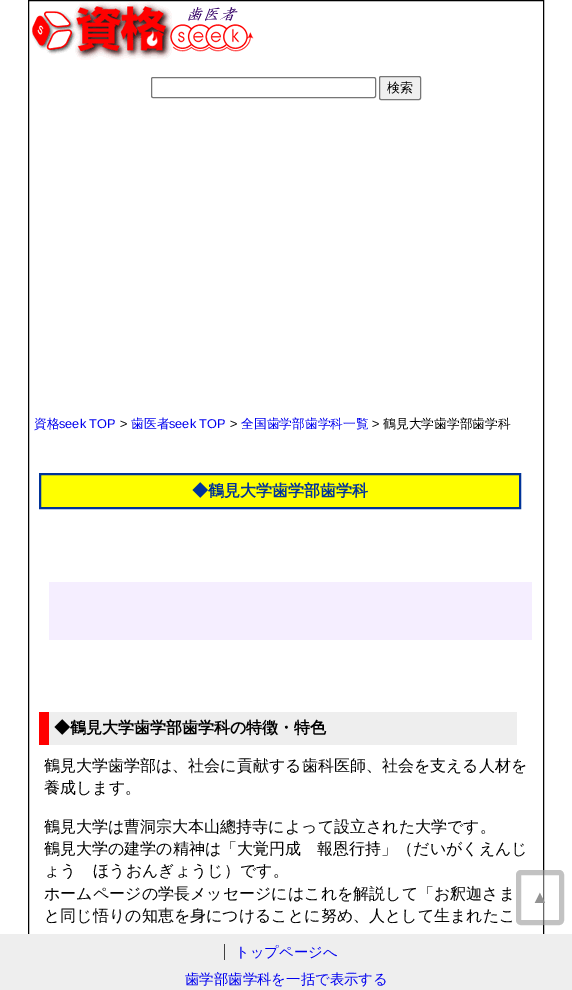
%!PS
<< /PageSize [572 990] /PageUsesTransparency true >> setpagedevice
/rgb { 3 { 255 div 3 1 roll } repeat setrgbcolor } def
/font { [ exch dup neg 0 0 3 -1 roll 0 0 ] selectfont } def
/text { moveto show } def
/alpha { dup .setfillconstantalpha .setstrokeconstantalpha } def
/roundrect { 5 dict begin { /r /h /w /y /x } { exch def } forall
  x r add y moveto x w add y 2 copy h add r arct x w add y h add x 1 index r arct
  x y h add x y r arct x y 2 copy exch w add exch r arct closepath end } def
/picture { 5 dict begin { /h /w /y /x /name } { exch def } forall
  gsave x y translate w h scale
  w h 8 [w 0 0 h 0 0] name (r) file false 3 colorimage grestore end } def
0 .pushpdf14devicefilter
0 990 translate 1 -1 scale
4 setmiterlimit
255 255 255 rgb
0 0 572 990 rectfill
0 0 0 rgb
28.5 0.5 515 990 rectstroke
(img_01.rgb) 31 2 223 58 picture
118 118 118 rgb
151.5 77.5 224 20 1.5 roundrect stroke
239 239 239 rgb
379.5 76.5 41 23 1.5 roundrect gsave fill grestore
118 118 118 rgb
stroke
255 255 0 rgb
40 474 moveto 480 0 rlineto 0 34 rlineto -480 0 rlineto closepath gsave fill grestore
0 51 153 rgb
2 setlinewidth
stroke
245 238 255 rgb
49 582 483 58 rectfill
238 238 238 rgb
49 712 468 33 rectfill
255 0 0 rgb
39 712 10 33 rectfill
0.4 alpha
255 255 255 rgb
516 870 48 55 5 roundrect fill
102 102 102 rgb
5 setlinewidth
518.5 872.5 43 50 2.5 roundrect stroke
1 alpha
238 238 238 rgb
0 934 572 56 rectfill
65 65 65 rgb
224 944 1 16 rectfill
/WenQuanYiZenHei-Medium 13 font
0 0 0 rgb
(検索) 387 92 text
/WenQuanYiZenHei-Medium 12.75 font
0 0 238 rgb
(資格) 34 428 text
/LiberationSans-Regular 12.75 font
(seek TOP) 59 428 text
0 0 0 rgb
(>) 120 428 text
/WenQuanYiZenHei-Medium 12.75 font
0 0 238 rgb
(歯医者) 131 428 text
/LiberationSans-Regular 12.75 font
(seek TOP) 169 428 text
0 0 0 rgb
(>) 230 428 text
/WenQuanYiZenHei-Medium 12.75 font
0 0 238 rgb
(全国歯学部歯学科一覧) 241 428 text
/LiberationSans-Regular 12.75 font
0 0 0 rgb
(>) 372 428 text
/WenQuanYiZenHei-Medium 12.75 font
(鶴見大学歯学部歯学科) 383 428 text
/WenQuanYiZenHei-Bold 16 font
0 51 153 rgb
(◆鶴見大学歯学部歯学科) 192 496 text
0 0 0 rgb
(◆鶴見大学歯学部歯学科の特徴・特色) 54 733 text
/WenQuanYiZenHei-Medium 16 font
(鶴見大学歯学部は、社会に貢献する歯科医師、社会を支える人材を) 44 771 text
(養成します。) 44 793 text
(鶴見大学は曹洞宗大本山總持寺によって設立された大学です。) 44 832 text
(鶴見大学の建学の精神は「大覚円成　報恩行持」（だいがくえんじ) 44 854 text
(ょう　ほうおんぎょうじ）です。) 44 876 text
(ホームページの学長メッセージにはこれを解説して「お釈迦さま) 44 899 text
(と同じ悟りの知恵を身につけることに努め、人として生まれたこ) 44 921 text
/LiberationSans-Regular 18 font
147 147 147 rgb
(▲) 531 903 text
/WenQuanYiZenHei-Medium 14.4 font
0 0 238 rgb
(トップページへ) 235 957 text
(歯学部歯学科を一括で表示する) 185 984 text
.poppdf14devicefilter showpage
